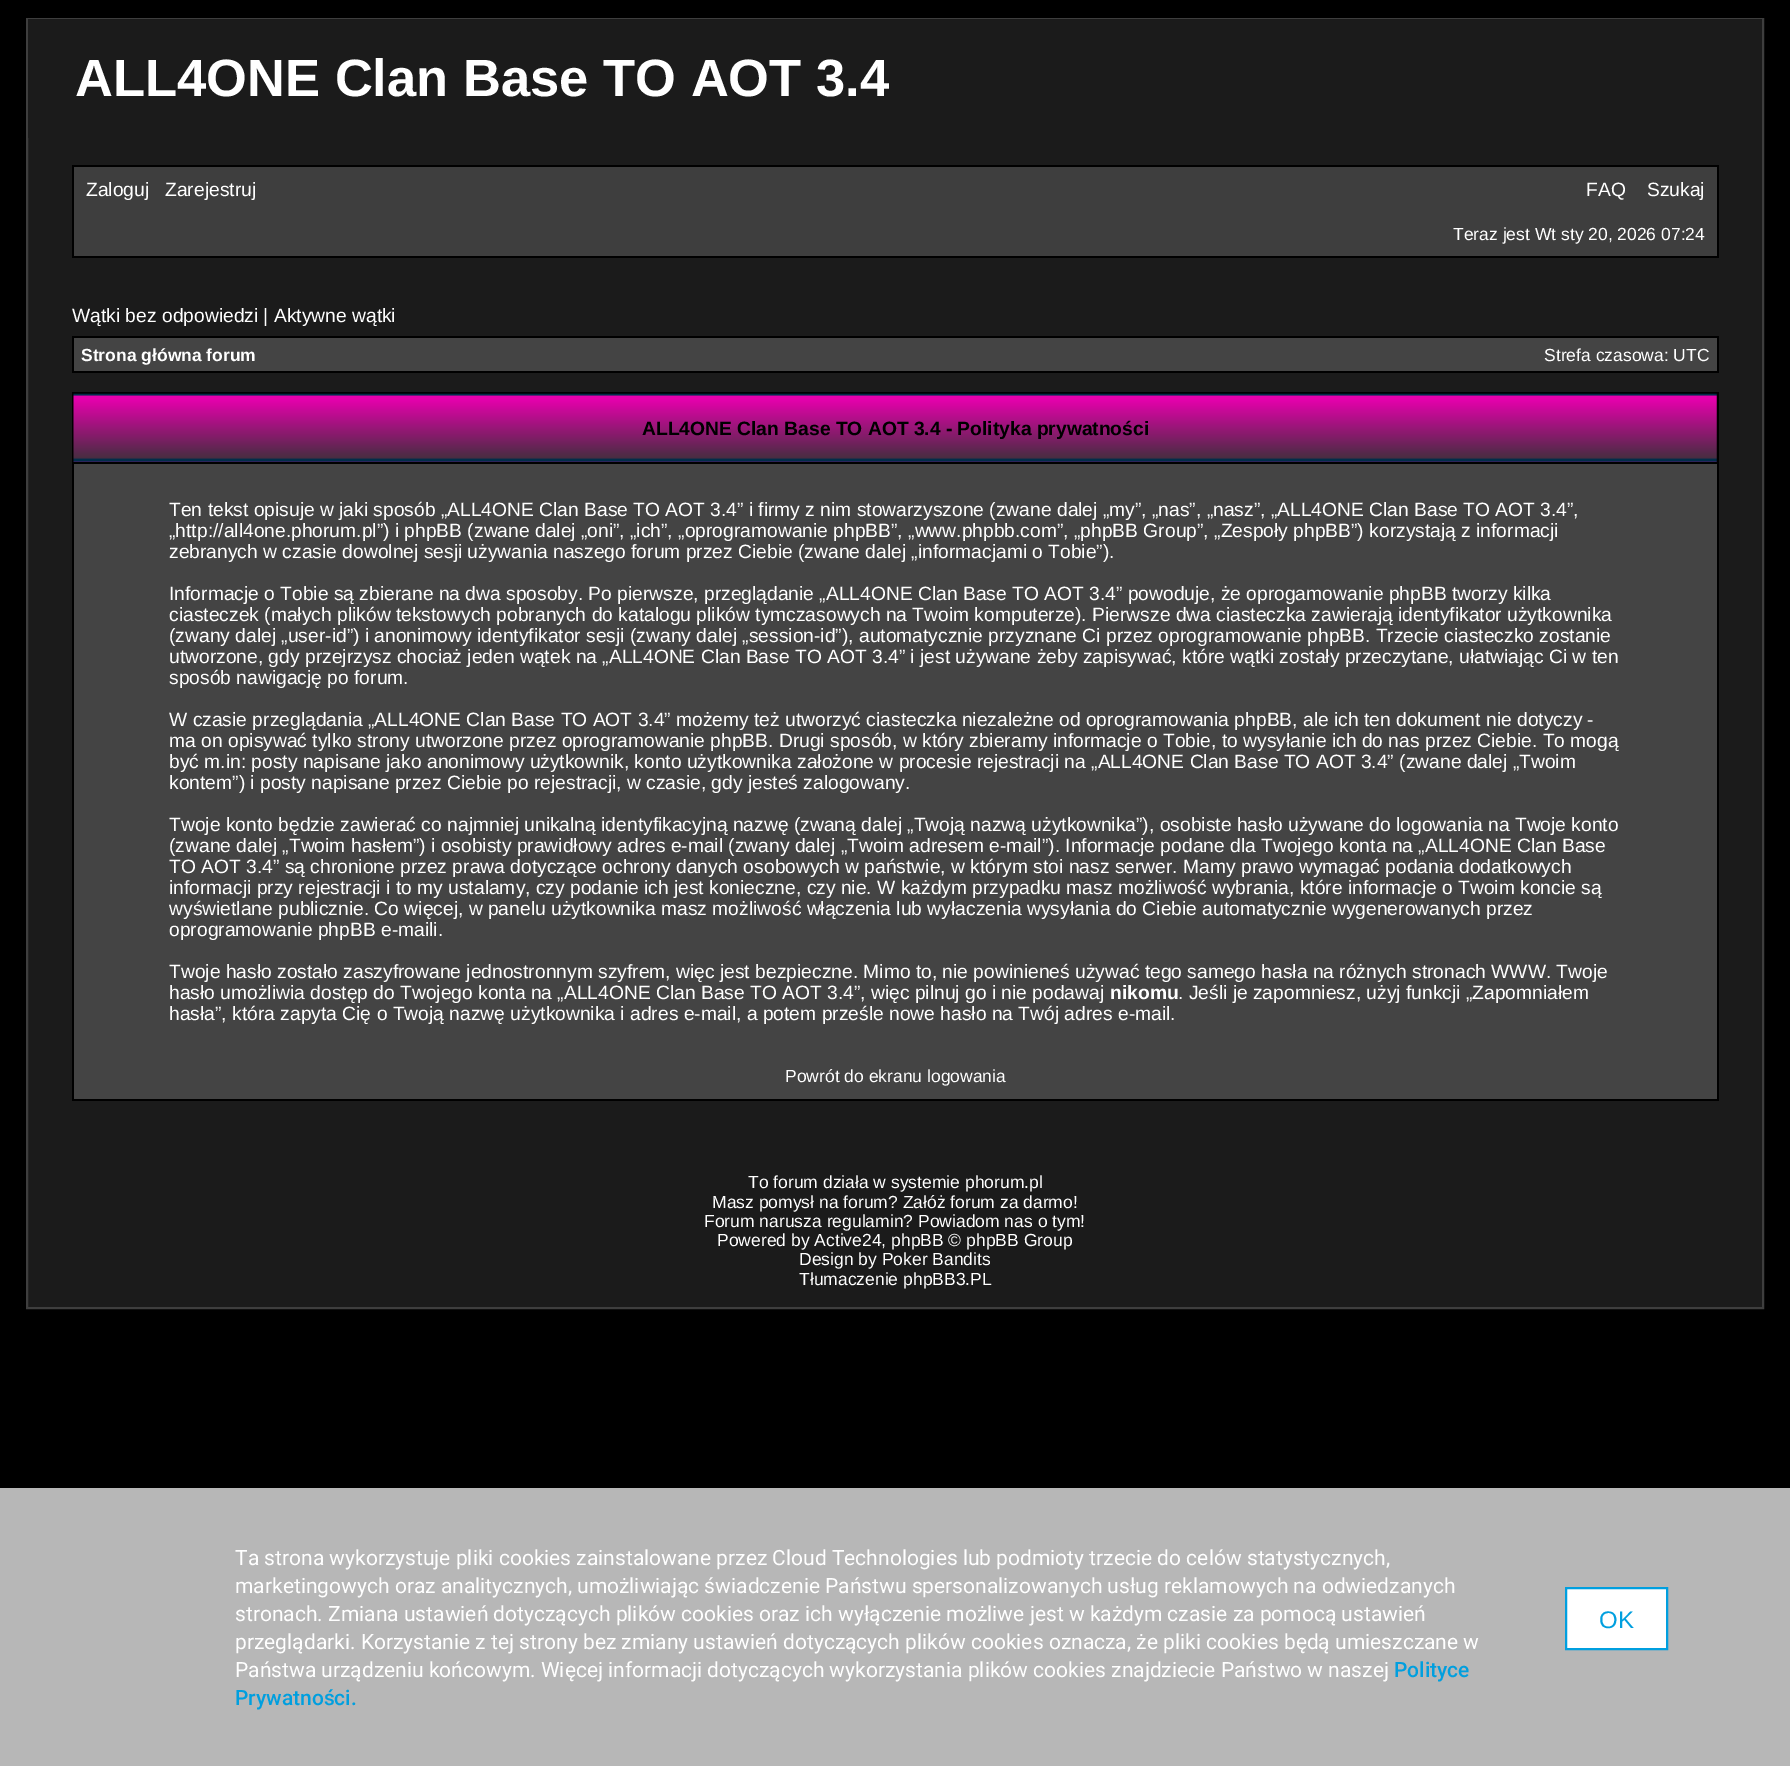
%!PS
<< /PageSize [1790 1766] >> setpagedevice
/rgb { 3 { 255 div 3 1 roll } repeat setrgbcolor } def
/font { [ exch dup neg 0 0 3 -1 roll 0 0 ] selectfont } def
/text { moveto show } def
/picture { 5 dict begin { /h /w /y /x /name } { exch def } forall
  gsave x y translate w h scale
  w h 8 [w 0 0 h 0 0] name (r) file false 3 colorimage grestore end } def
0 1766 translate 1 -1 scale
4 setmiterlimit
0 0 0 rgb
0 0 1790 1766 rectfill
27 27 27 rgb
28 138 1734 1169 rectfill
62 62 62 rgb
2 setlinewidth
27 19 1736 1289 rectstroke
27 27 27 rgb
28 19 1734 119 rectfill
62 62 62 rgb
74 167 1643 89 rectfill
0 0 0 rgb
72 165 1647 2 rectfill
1717 165 2 92 rectfill
72 165 2 47 rectfill
72 256 1647 2 rectfill
72 212 2 45 rectfill
72 336 1647 37 rectfill
68 68 68 rgb
74 338 1643 33 rectfill
0 0 0 rgb
72 392 1647 709 rectfill
(img_01.rgb) 73 393 1644 69 picture
68 68 68 rgb
74 464 1643 635 rectfill
183 183 183 rgb
0 1488 1790 278 rectfill
255 255 255 rgb
1566 1588 moveto 101 0 rlineto 0 61 rlineto -101 0 rlineto closepath gsave fill grestore
0 159 223 rgb
stroke
/LiberationSans-Bold 52.5 font
255 255 255 rgb
(ALL4ONE Clan Base TO AOT 3.4) 75 96 text
/LiberationSans-Regular 19.25 font
(Zaloguj) 86 196 text
(Zarejestruj) 165 196 text
(FAQ) 1586 196 text
(Szukaj) 1647 196 text
/LiberationSans-Regular 17.5 font
(Teraz jest Wt sty 20, 2026 07:24) 1453 240 text
/LiberationSans-Regular 19.25 font
(Wątki bez odpowiedzi | Aktywne wątki) 72 322 text
/LiberationSans-Bold 17.5 font
(Strona główna forum) 81 361 text
/LiberationSans-Regular 17.5 font
(Strefa czasowa: UTC) 1544 361 text
/LiberationSans-Bold 19.25 font
0 0 0 rgb
(ALL4ONE Clan Base TO AOT 3.4 - Polityka prywatności) 642 435 text
/LiberationSans-Regular 19.25 font
255 255 255 rgb
(Ten tekst opisuje w jaki sposób „ALL4ONE Clan Base TO AOT 3.4” i firmy z nim stowarzyszone \(zwane dalej „my”, „nas”, „nasz”, „ALL4ONE Clan Base TO AOT 3.4”,) 169 516 text
(„http://all4one.phorum.pl”\) i phpBB \(zwane dalej „oni”, „ich”, „oprogramowanie phpBB”, „www.phpbb.com”, „phpBB Group”, „Zespoły phpBB”\) korzystają z informacji) 169 537 text
(zebranych w czasie dowolnej sesji używania naszego forum przez Ciebie \(zwane dalej „informacjami o Tobie”\).) 169 558 text
(Informacje o Tobie są zbierane na dwa sposoby. Po pierwsze, przeglądanie „ALL4ONE Clan Base TO AOT 3.4” powoduje, że oprogamowanie phpBB tworzy kilka) 169 600 text
(ciasteczek \(małych plików tekstowych pobranych do katalogu plików tymczasowych na Twoim komputerze\). Pierwsze dwa ciasteczka zawierają identyfikator użytkownika) 169 621 text
(\(zwany dalej „user-id”\) i anonimowy identyfikator sesji \(zwany dalej „session-id”\), automatycznie przyznane Ci przez oprogramowanie phpBB. Trzecie ciasteczko zostanie) 169 642 text
(utworzone, gdy przejrzysz chociaż jeden wątek na „ALL4ONE Clan Base TO AOT 3.4” i jest używane żeby zapisywać, które wątki zostały przeczytane, ułatwiając Ci w ten) 169 663 text
(sposób nawigację po forum.) 169 684 text
(W czasie przeglądania „ALL4ONE Clan Base TO AOT 3.4” możemy też utworzyć ciasteczka niezależne od oprogramowania phpBB, ale ich ten dokument nie dotyczy -) 169 726 text
(ma on opisywać tylko strony utworzone przez oprogramowanie phpBB. Drugi sposób, w który zbieramy informacje o Tobie, to wysyłanie ich do nas przez Ciebie. To mogą) 169 747 text
(być m.in: posty napisane jako anonimowy użytkownik, konto użytkownika założone w procesie rejestracji na „ALL4ONE Clan Base TO AOT 3.4” \(zwane dalej „Twoim) 169 768 text
(kontem”\) i posty napisane przez Ciebie po rejestracji, w czasie, gdy jesteś zalogowany.) 169 789 text
(Twoje konto będzie zawierać co najmniej unikalną identyfikacyjną nazwę \(zwaną dalej „Twoją nazwą użytkownika”\), osobiste hasło używane do logowania na Twoje konto) 169 831 text
(\(zwane dalej „Twoim hasłem”\) i osobisty prawidłowy adres e-mail \(zwany dalej „Twoim adresem e-mail”\). Informacje podane dla Twojego konta na „ALL4ONE Clan Base) 169 852 text
(TO AOT 3.4” są chronione przez prawa dotyczące ochrony danych osobowych w państwie, w którym stoi nasz serwer. Mamy prawo wymagać podania dodatkowych) 169 873 text
(informacji przy rejestracji i to my ustalamy, czy podanie ich jest konieczne, czy nie. W każdym przypadku masz możliwość wybrania, które informacje o Twoim koncie są) 169 894 text
(wyświetlane publicznie. Co więcej, w panelu użytkownika masz możliwość włączenia lub wyłaczenia wysyłania do Ciebie automatycznie wygenerowanych przez) 169 915 text
(oprogramowanie phpBB e-maili.) 169 936 text
(Twoje hasło zostało zaszyfrowane jednostronnym szyfrem, więc jest bezpieczne. Mimo to, nie powinieneś używać tego samego hasła na różnych stronach WWW. Twoje) 169 978 text
(hasło umożliwia dostęp do Twojego konta na „ALL4ONE Clan Base TO AOT 3.4”, więc pilnuj go i nie podawaj) 169 999 text
/LiberationSans-Bold 19.25 font
(nikomu) 1110 999 text
/LiberationSans-Regular 19.25 font
(. Jeśli je zapomniesz, użyj funkcji „Zapomniałem) 1178 999 text
(hasła”, która zapyta Cię o Twoją nazwę użytkownika i adres e-mail, a potem prześle nowe hasło na Twój adres e-mail.) 169 1020 text
/LiberationSans-Regular 17.5 font
(Powrót do ekranu logowania) 785 1082 text
(To forum działa w systemie phorum.pl) 748 1188 text
(Masz pomysł na forum? Załóż forum za darmo!) 712 1208 text
(Forum narusza regulamin? Powiadom nas o tym!) 704 1227 text
(Powered by Active24, phpBB © phpBB Group) 717 1246 text
(Design by Poker Bandits) 799 1265 text
(Tłumaczenie phpBB3.PL) 799 1285 text
/Roboto-Regular 21 font
(Ta strona wykorzystuje pliki cookies zainstalowane przez Cloud Technologies lub podmioty trzecie do celów statystycznych,) 235 1565 text
(marketingowych oraz analitycznych, umożliwiając świadczenie Państwu spersonalizowanych usług reklamowych na odwiedzanych) 235 1593 text
(stronach. Zmiana ustawień dotyczących plików cookies oraz ich wyłączenie możliwe jest w każdym czasie za pomocą ustawień) 235 1621 text
(przeglądarki. Korzystanie z tej strony bez zmiany ustawień dotyczących plików cookies oznacza, że pliki cookies będą umieszczane w) 235 1649 text
(Państwa urządzeniu końcowym. Więcej informacji dotyczących wykorzystania plików cookies znajdziecie Państwo w naszej) 235 1677 text
/Roboto-Medium 21 font
0 159 223 rgb
(Polityce) 1394 1677 text
(Prywatności.) 235 1705 text
/LiberationSans-Regular 24 font
(OK) 1599 1628 text
showpage
